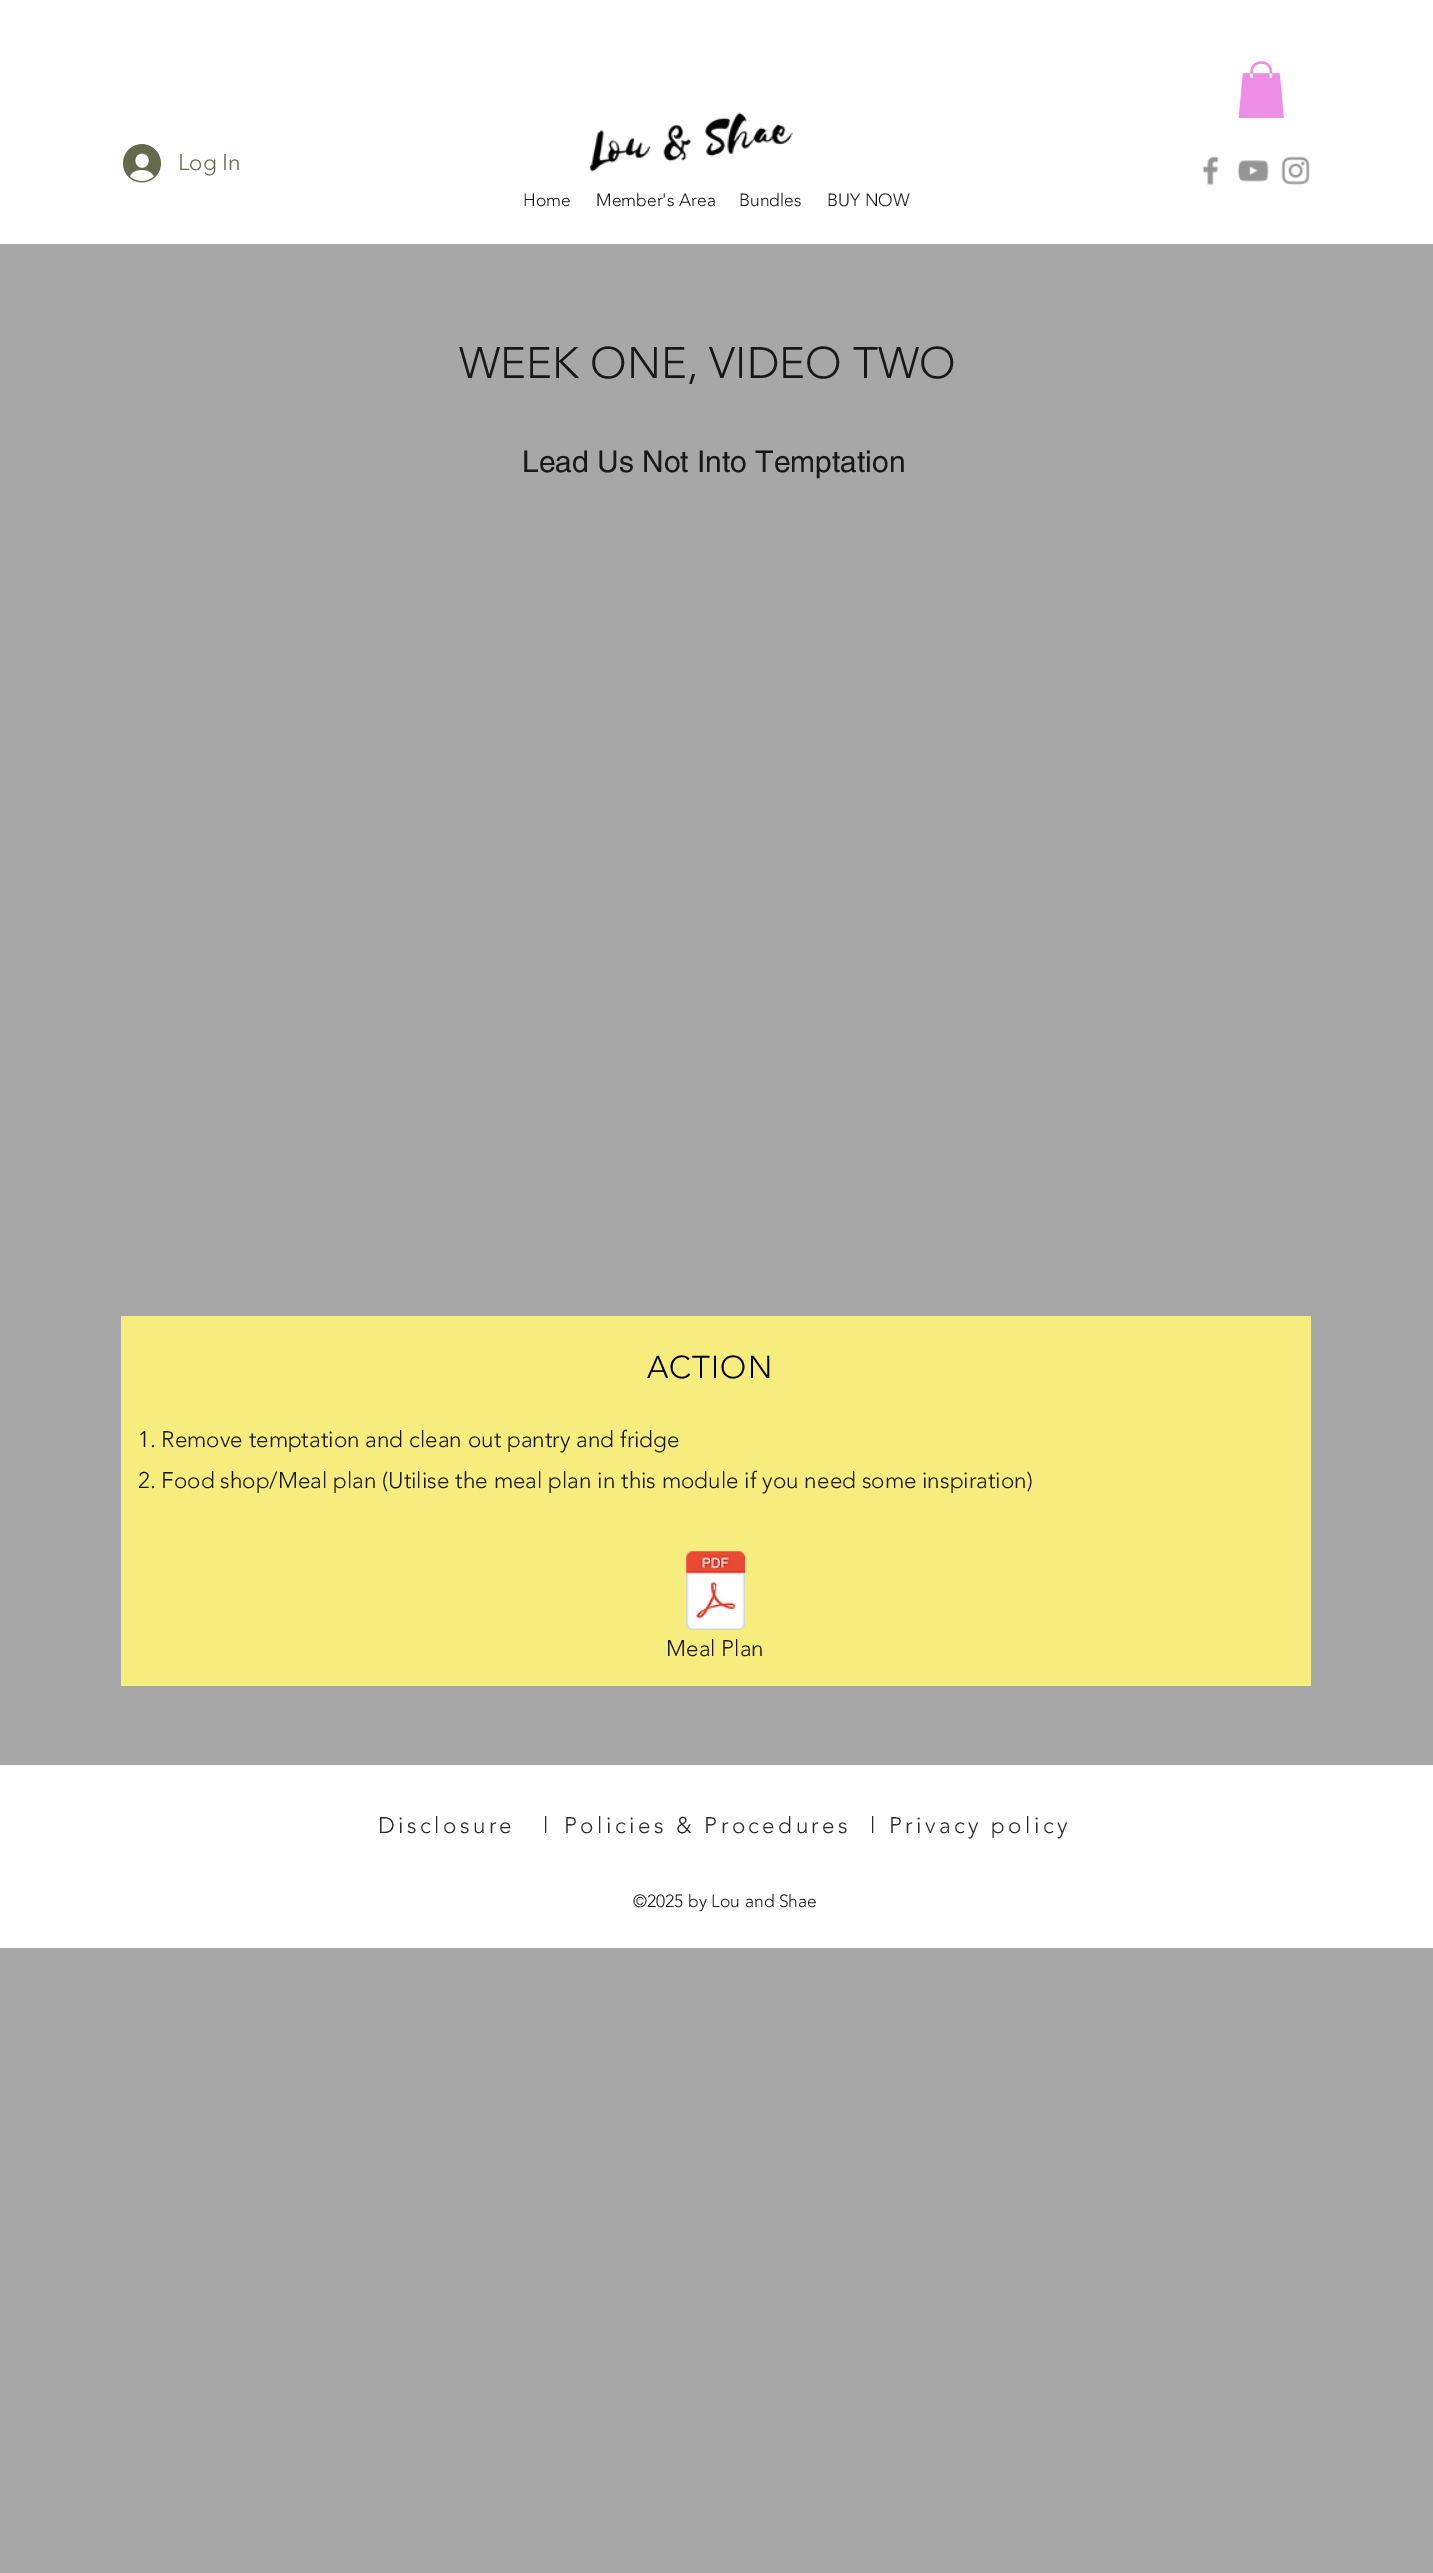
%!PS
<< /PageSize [1433 2573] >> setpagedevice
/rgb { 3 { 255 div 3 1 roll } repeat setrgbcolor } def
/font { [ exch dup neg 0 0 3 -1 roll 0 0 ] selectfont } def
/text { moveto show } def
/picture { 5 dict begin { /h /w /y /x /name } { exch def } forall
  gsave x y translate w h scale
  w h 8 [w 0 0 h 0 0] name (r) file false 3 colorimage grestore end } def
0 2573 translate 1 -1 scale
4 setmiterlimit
167 167 167 rgb
0 0 1433 2573 rectfill
255 255 255 rgb
0 0 1433 244 rectfill
(img_01.rgb) 1238 61 46 57 picture
(img_02.rgb) 123 144 38 39 picture
(img_03.rgb) 589 112 204 60 picture
(img_04.rgb) 1202 156 17 30 picture
(img_05.rgb) 1237 160 32 22 picture
(img_06.rgb) 1281 156 29 29 picture
247 236 126 rgb
121 1316 1190 370 rectfill
(img_07.rgb) 686 1551 59 79 picture
255 255 255 rgb
0 1765 1433 183 rectfill
/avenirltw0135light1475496-Light 22.5 font
101 106 76 rgb
(Log In) 178 170 text
/avenirltw0135light1475496-Light 17.5 font
24 24 24 rgb
(Home) 523 206 text
(Member's Area) 596 206 text
(Bundles) 739 206 text
(BUY NOW) 827 206 text
/avenirltw0135light1475496-Light 43.75 font
(WEEK ONE, VIDEO TWO) 459 378 text
/helvetica-Regular 30 font
(Lead Us Not Into Temptation) 522 472 text
/avenirltw0135light1475496-Light 31.25 font
0 0 0 rgb
647 1378 moveto 1 0 (ACTION) ashow
/avenirltw0135light1475496-Light 22.5 font
24 24 24 rgb
(1. Remove temptation and clean out pantry and fridge) 138 1447 text
(2. Food shop/Meal plan \(Utilise the meal plan in this module if you need some inspiration\)) 138 1488 text
(Meal Plan) 666 1656 text
41 41 41 rgb
378 1833 moveto 3.4 0 (Disclosure   l) ashow
564 1833 moveto 3.4 0 (Policies & Procedures  l) ashow
889 1833 moveto 3.4 0 (Privacy policy) ashow
/avenirltw0135light1475496-Light 17.5 font
24 24 24 rgb
(©2025 by Lou and Shae) 633 1907 text
showpage
